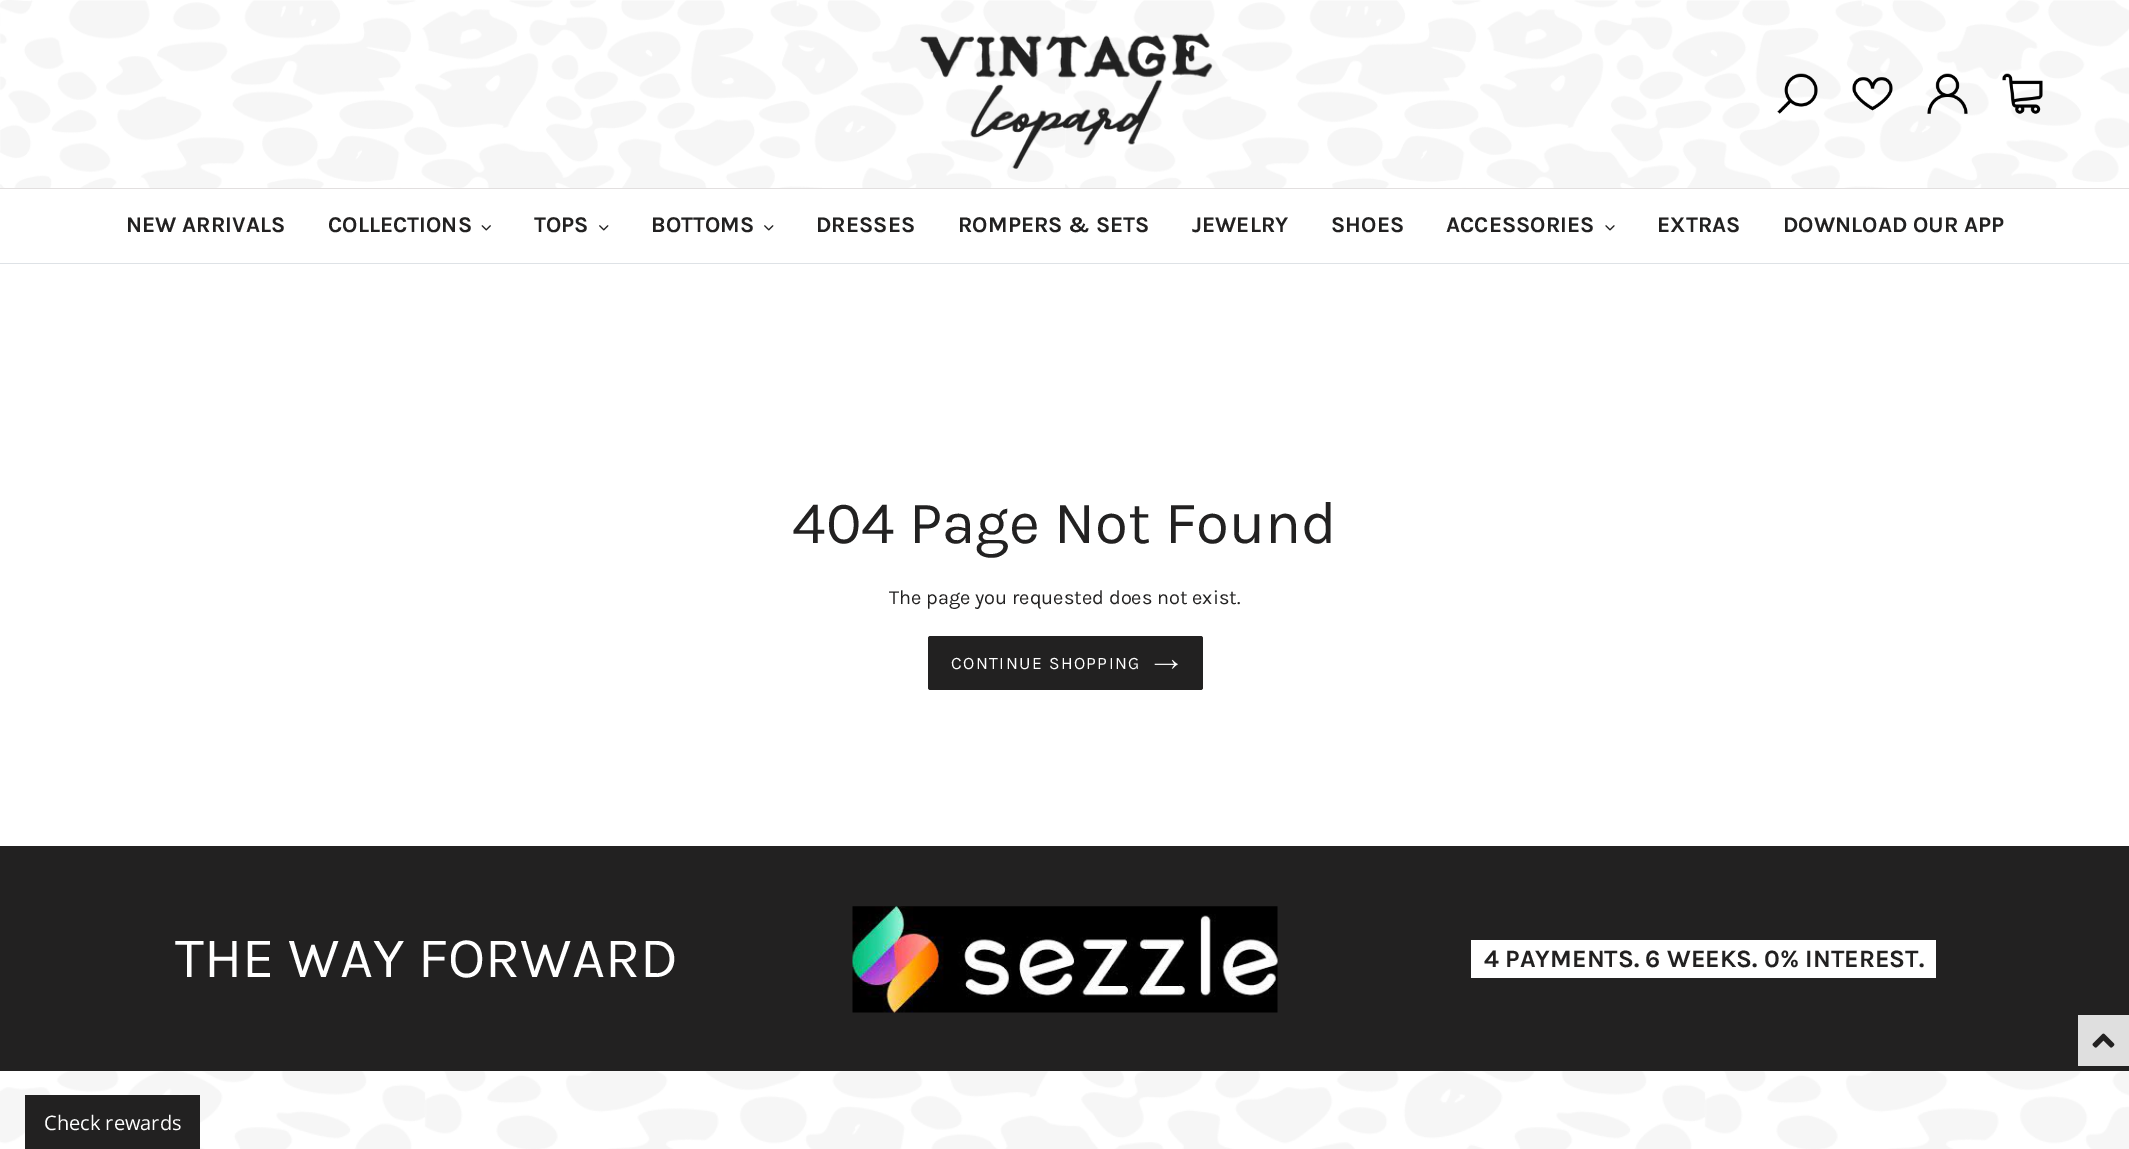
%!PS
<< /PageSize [2129 1149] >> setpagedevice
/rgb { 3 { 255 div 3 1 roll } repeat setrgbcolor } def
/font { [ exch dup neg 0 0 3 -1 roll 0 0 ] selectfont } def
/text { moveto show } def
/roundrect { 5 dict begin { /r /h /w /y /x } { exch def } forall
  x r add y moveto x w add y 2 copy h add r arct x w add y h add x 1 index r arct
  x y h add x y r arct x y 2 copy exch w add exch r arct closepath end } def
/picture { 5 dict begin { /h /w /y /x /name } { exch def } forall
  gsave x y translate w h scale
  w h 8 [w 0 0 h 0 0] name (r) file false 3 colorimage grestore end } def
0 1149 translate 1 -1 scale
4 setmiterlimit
255 255 255 rgb
0 0 2129 1149 rectfill
(img_01.rgb) 0 0 2129 188 picture
226 223 223 rgb
0 188 2129 1 rectfill
(img_02.rgb) 920 32 293 137 picture
(img_03.rgb) 1777 73 41 41 picture
(img_04.rgb) 1852 77 41 34 picture
(img_05.rgb) 1927 73 41 41 picture
(img_06.rgb) 2002 73 41 41 picture
222 226 230 rgb
0 263 2129 1 rectfill
(img_07.rgb) 481 225 10 6 picture
(img_08.rgb) 599 225 10 6 picture
(img_08.rgb) 764 225 10 6 picture
(img_09.rgb) 1605 225 10 6 picture
34 33 33 rgb
928 636 275 54 2.5 roundrect fill
(img_10.rgb) 1154 659 24 10 picture
0 846 2129 225 rectfill
(img_11.rgb) 852 906 426 107 picture
255 255 255 rgb
1471 940 465 38 rectfill
(img_12.rgb) 0 1071 2129 78 picture
223 223 223 rgb
2078 1015 51 51 rectfill
(img_13.rgb) 2092 1033 23 15 picture
34 33 33 rgb
25 1095 175 54 rectfill
/Karla-Bold 22.5 font
(NEW ARRIVALS) 126 232 text
(COLLECTIONS) 328 232 text
(TOPS) 534 232 text
(BOTTOMS) 651 232 text
(DRESSES) 816 232 text
(ROMPERS & SETS) 958 232 text
(JEWELRY) 1192 232 text
(SHOES) 1331 232 text
(ACCESSORIES) 1446 232 text
(EXTRAS) 1657 232 text
(DOWNLOAD OUR APP) 1783 232 text
/Karla-Regular 60 font
(404 Page Not Found) 792 543 text
/Karla-Regular 20 font
(The page you requested does not exist.) 889 604 text
/Karla-Regular 17.5 font
255 255 255 rgb
951 669 moveto 1.4 0 (CONTINUE SHOPPING) ashow
/Karla-Regular 57.5 font
(THE WAY FORWARD) 175 977 text
/Karla-Bold 25 font
34 33 33 rgb
(4 PAYMENTS. 6 WEEKS. 0% INTEREST.) 1484 967 text
/OpenSans-Regular 20 font
255 255 255 rgb
(Check rewards) 44 1130 text
showpage
